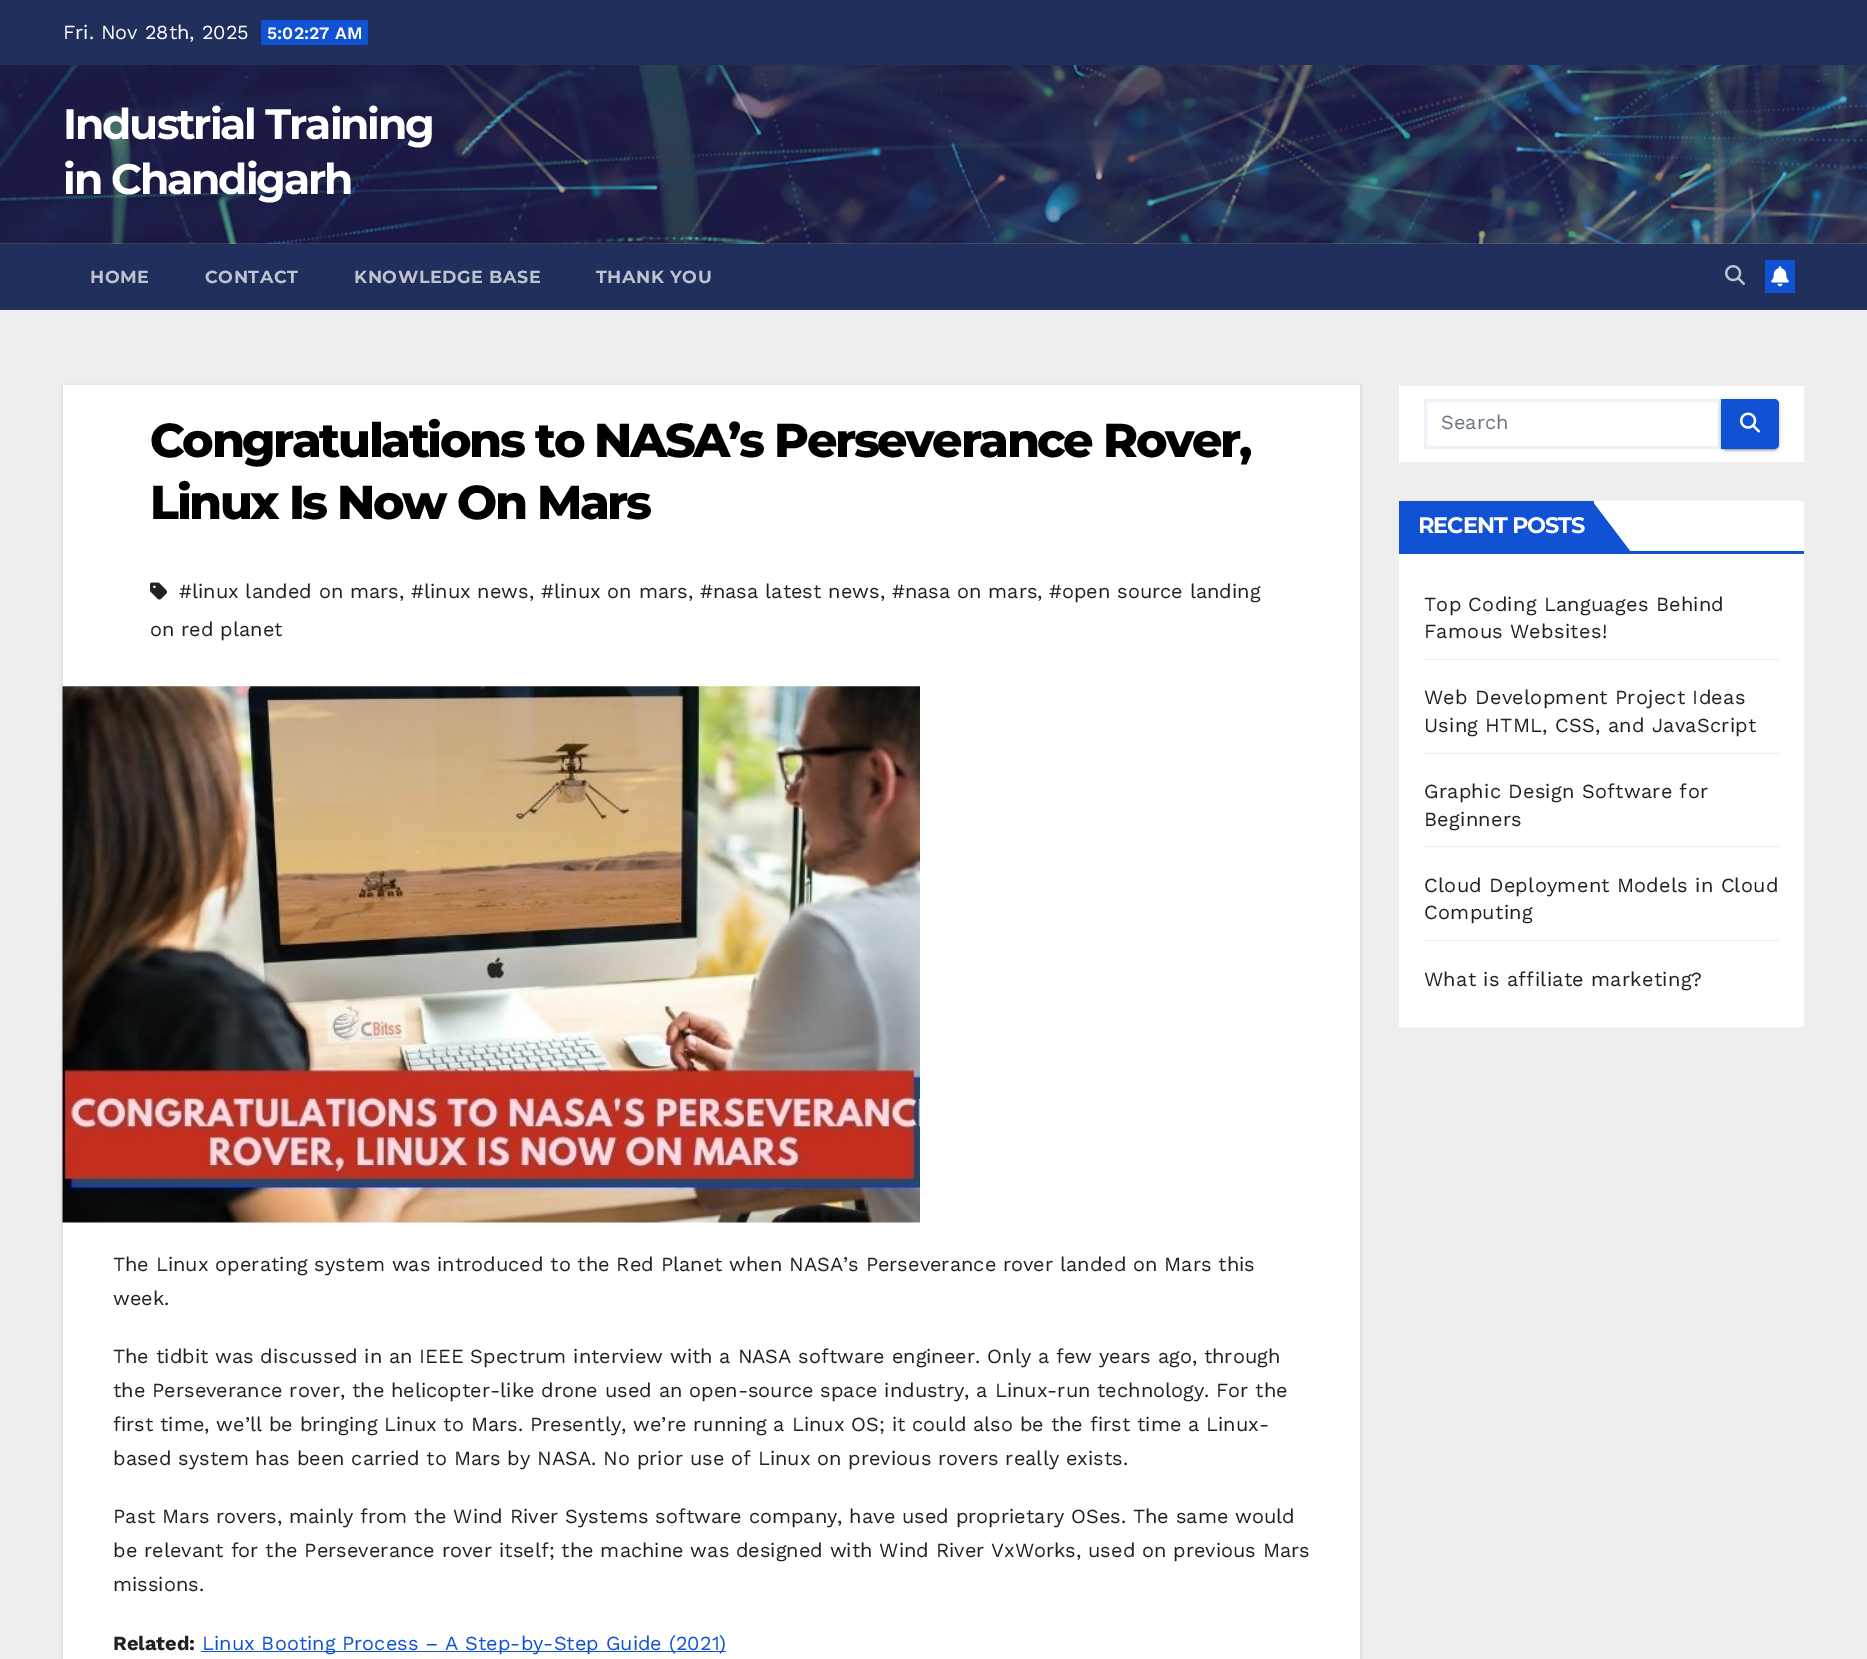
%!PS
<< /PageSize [1867 1659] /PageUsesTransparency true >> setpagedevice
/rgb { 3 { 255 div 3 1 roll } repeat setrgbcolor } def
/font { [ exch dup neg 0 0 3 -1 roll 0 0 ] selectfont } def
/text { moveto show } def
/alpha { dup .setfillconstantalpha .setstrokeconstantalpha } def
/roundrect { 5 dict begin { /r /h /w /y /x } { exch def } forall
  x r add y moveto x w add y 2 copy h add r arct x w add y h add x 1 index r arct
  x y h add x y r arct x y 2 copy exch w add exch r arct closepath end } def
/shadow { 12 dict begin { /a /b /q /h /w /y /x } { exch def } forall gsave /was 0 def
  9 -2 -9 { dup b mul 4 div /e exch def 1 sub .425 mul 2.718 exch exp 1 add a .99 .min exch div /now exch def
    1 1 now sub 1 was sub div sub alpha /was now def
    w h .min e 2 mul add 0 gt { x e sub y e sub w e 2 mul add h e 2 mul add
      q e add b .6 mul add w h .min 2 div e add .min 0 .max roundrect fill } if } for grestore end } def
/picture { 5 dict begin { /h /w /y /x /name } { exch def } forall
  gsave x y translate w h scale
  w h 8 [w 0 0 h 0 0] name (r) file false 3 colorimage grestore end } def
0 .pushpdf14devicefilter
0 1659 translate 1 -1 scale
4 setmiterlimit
238 238 238 rgb
0 0 1867 1659 rectfill
32 47 91 rgb
0 0 1867 65 rectfill
17 81 211 rgb
261 20 107 25 2.5 roundrect fill
(img_01.rgb) 0 65 1867 179 picture
32 47 91 rgb
0 244 1867 66 rectfill
(img_02.rgb) 1725 265 20 20 picture
17 81 211 rgb
1765 260 30 33 rectfill
(img_03.rgb) 1771 266 18 21 picture
0 0 0 rgb
63 386 1297 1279 0 2 0.15 shadow
255 255 255 rgb
63 385 1297 1274 rectfill
(img_04.rgb) 150 582 17 18 picture
(img_05.rgb) 62 686 858 537 picture
17 81 211 rgb
201 1651 525 1 rectfill
255 255 255 rgb
1399 386 405 76 rectfill
238 243 251 rgb
3 setlinewidth
1425.5 400.5 294 47 rectstroke
0 0 0 rgb
1721 400 58 50 5 3 0.12 shadow
1724 405 52 45 2.5 0.5 0.2 shadow
1721 401 58 50 5 1 0.14 shadow
17 81 211 rgb
1721 399 moveto 53 0 rlineto 3 0 5 2 5 5 rcurveto 0 40 rlineto 0 3 -2 5 -5 5 rcurveto -53 0 rlineto closepath fill
(img_06.rgb) 1740 412 20 21 picture
255 255 255 rgb
1399 501 405 526 rectfill
17 81 211 rgb
1399 551 405 3 rectfill
1399 501 195 50 rectfill
1592 551 moveto 0 -50 rlineto 38 50 rlineto closepath fill
238 238 238 rgb
1424 659 355 1 rectfill
1424 753 355 1 rectfill
1424 846 355 1 rectfill
1424 940 355 1 rectfill
/WorkSans-Regular 20 font
255 255 255 rgb
(Fri. Nov 28th, 2025) 63 39 text
/WorkSans-SemiBold 17.5 font
(5:02:27 AM) 267 39 text
/Montserrat-Thin 42.5 font
63 139 moveto -2.1 0 (Industrial Training) ashow
63 194 moveto -2.1 0 (in Chandigarh) ashow
/Montserrat-Thin 17.5 font
190 195 207 rgb
90 283 moveto 0.6 0 (HOME) ashow
205 283 moveto 0.6 0 (CONTACT) ashow
354 283 moveto 0.6 0 (KNOWLEDGE BASE) ashow
596 283 moveto 0.6 0 (THANK YOU) ashow
/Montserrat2-Thin 47.5 font
0 0 0 rgb
150 457 moveto -2.4 0 (Congratulations to NASA’s Perseverance Rover,) ashow
150 519 moveto -2.4 0 (Linux Is Now On Mars) ashow
/WorkSans-Regular 20 font
33 33 33 rgb
(#linux landed on mars) 179 598 text
(,) 399 598 text
(#linux news) 411 598 text
(,) 529 598 text
(#linux on mars) 541 598 text
(,) 688 598 text
(#nasa latest news) 700 598 text
(,) 880 598 text
(#nasa on mars) 892 598 text
(,) 1037 598 text
(#open source landing) 1049 598 text
(on red planet) 150 636 text
(The Linux operating system was introduced to the Red Planet when NASA’s Perseverance rover landed on Mars this) 113 1271 text
(week.) 113 1305 text
(The tidbit was discussed in an IEEE Spectrum interview with a NASA software engineer. Only a few years ago, through) 113 1363 text
(the Perseverance rover, the helicopter-like drone used an open-source space industry, a Linux-run technology. For the) 113 1397 text
(first time, we’ll be bringing Linux to Mars. Presently, we’re running a Linux OS; it could also be the first time a Linux-) 113 1431 text
(based system has been carried to Mars by NASA. No prior use of Linux on previous rovers really exists.) 113 1465 text
(Past Mars rovers, mainly from the Wind River Systems software company, have used proprietary OSes. The same would) 113 1523 text
(be relevant for the Perseverance rover itself; the machine was designed with Wind River VxWorks, used on previous Mars) 113 1557 text
(missions.) 113 1591 text
/WorkSans-Bold 20 font
(Related:) 113 1650 text
/WorkSans-Regular 20 font
17 81 211 rgb
(Linux Booting Process – A Step-by-Step Guide \(2021\)) 202 1650 text
108 117 125 rgb
(Search) 1441 429 text
/Montserrat-Thin 22.5 font
255 255 255 rgb
1418 533 moveto -1.1 0 (RECENT POSTS) ashow
/WorkSans-Regular 20 font
33 33 33 rgb
1424 611 moveto 0.25 0 (Top Coding Languages Behind) ashow
1424 638 moveto 0.25 0 (Famous Websites!) ashow
1424 704 moveto 0.25 0 (Web Development Project Ideas) ashow
1424 732 moveto 0.25 0 (Using HTML, CSS, and JavaScript) ashow
1424 798 moveto 0.25 0 (Graphic Design Software for) ashow
1424 826 moveto 0.25 0 (Beginners) ashow
1424 892 moveto 0.25 0 (Cloud Deployment Models in Cloud) ashow
1424 919 moveto 0.25 0 (Computing) ashow
1424 986 moveto 0.25 0 (What is affiliate marketing?) ashow
.poppdf14devicefilter showpage
